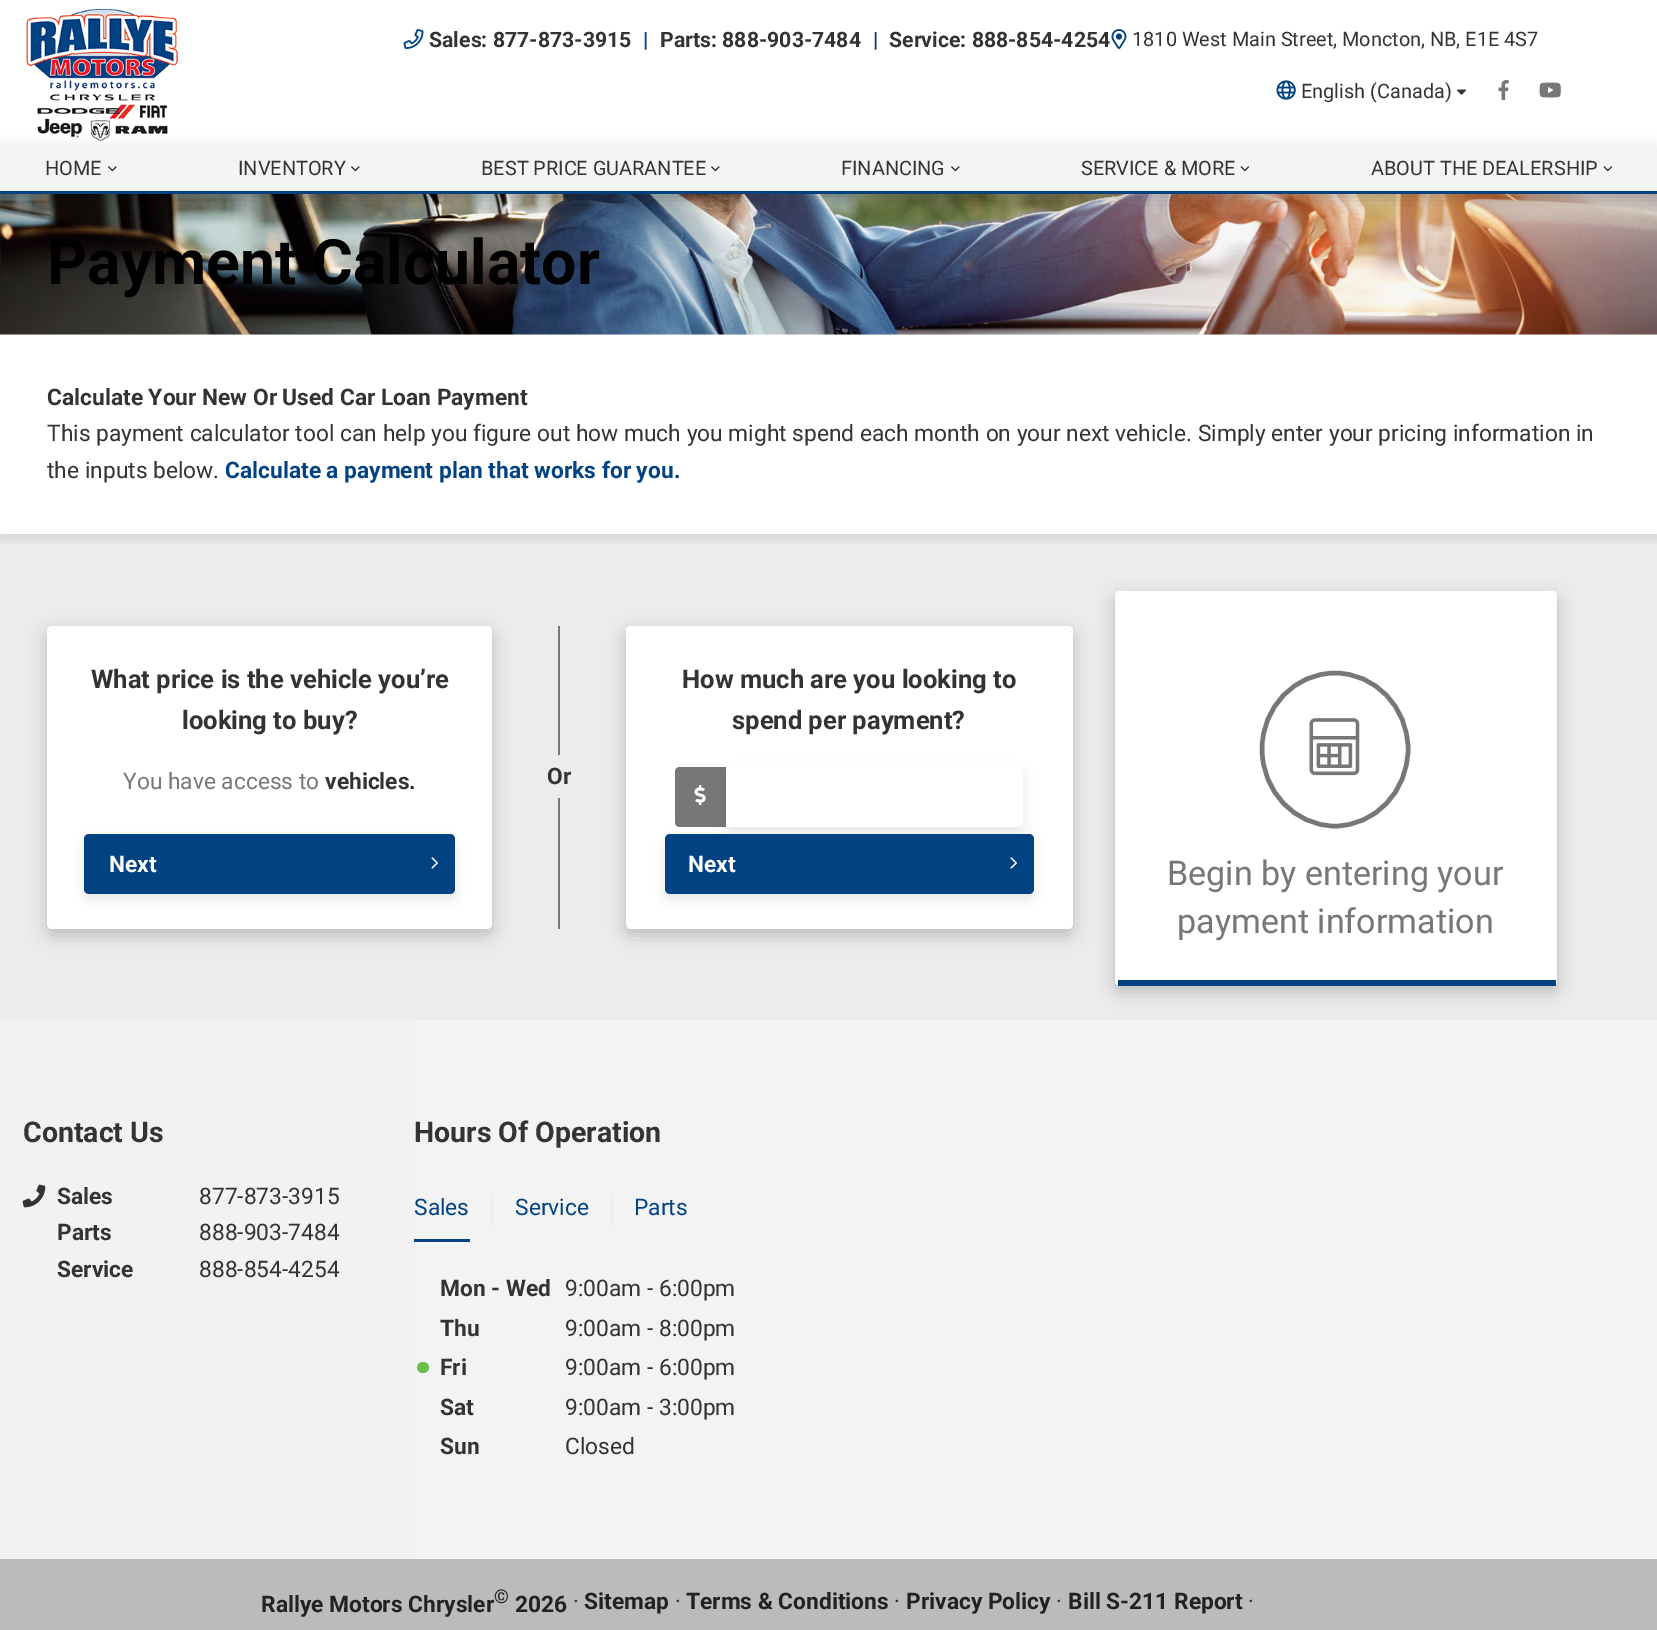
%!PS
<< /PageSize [1657 1630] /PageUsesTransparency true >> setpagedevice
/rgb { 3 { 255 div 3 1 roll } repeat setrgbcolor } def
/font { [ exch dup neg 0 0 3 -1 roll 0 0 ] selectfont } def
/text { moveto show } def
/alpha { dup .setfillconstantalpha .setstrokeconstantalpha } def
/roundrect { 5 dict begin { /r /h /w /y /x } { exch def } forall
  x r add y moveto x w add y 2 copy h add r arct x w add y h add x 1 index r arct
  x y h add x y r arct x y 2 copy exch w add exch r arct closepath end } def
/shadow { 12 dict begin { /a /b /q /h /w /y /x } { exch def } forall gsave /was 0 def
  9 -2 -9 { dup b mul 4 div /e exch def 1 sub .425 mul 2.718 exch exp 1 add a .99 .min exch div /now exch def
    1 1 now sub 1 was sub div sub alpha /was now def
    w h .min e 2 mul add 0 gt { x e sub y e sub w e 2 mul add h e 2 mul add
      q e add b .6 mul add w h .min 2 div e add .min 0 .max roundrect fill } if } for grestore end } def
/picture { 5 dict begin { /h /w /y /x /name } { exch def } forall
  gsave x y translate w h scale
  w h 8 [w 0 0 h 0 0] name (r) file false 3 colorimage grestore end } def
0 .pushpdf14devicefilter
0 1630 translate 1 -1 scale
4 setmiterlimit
255 255 255 rgb
0 0 1657 1630 rectfill
248 248 248 rgb
0 334 1657 1 rectfill
(img_01.rgb) 26 9 152 132 picture
(img_02.rgb) 403 29 21 20 picture
(img_03.rgb) 1111 29 16 20 picture
(img_04.rgb) 1276 80 20 20 picture
(img_05.rgb) 1456 89 11 6 picture
(img_06.rgb) 1498 80 11 20 picture
(img_07.rgb) 1539 82 22 16 picture
(img_10.rgb) 0 194 1657 141 picture
0 0 0 rgb
0 152 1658 48 0 8.5 0.2 shadow
244 244 244 rgb
0 146 1657 45 rectfill
0 66 130 rgb
0 191 1657 3 rectfill
(img_08.rgb) 108 166 9 6 picture
(img_08.rgb) 351 166 9 6 picture
(img_08.rgb) 711 166 9 6 picture
(img_08.rgb) 951 166 9 6 picture
(img_09.rgb) 1240 166 10 6 picture
(img_09.rgb) 1603 166 10 6 picture
236 236 236 rgb
0 534 1657 486 rectfill
gsave
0 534 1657 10 rectclip
0 0 0 rgb
0 339 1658 200 0 5.5 0.1 shadow
grestore
0 0 0 rgb
47 632 445 303 5 8.5 0.2 shadow
255 255 255 rgb
47 626 445 303 5 roundrect fill
0 0 0 rgb
84 839 371 60 5 5.5 0.1 shadow
0 66 130 rgb
84 834 371 60 5 roundrect fill
(img_11.rgb) 431 857 7 12 picture
119 119 119 rgb
558 626 2 129 rectfill
558 798 2 131 rectfill
0 0 0 rgb
626 632 447 303 5 8.5 0.2 shadow
255 255 255 rgb
626 626 447 303 5 roundrect fill
119 119 119 rgb
680 767 moveto 46 0 rlineto 0 60 rlineto -46 0 rlineto -3 0 -5 -2 -5 -5 rcurveto 0 -50 rlineto 0 -3 2 -5 5 -5 rcurveto closepath fill
(img_12.rgb) 694 785 12 20 picture
0 0 0 rgb
726 771 297 60 5 5.5 0.1 shadow
255 255 255 rgb
726 767 moveto 292 0 rlineto 3 0 5 2 5 5 rcurveto 0 50 rlineto 0 3 -2 5 -5 5 rcurveto -292 0 rlineto closepath fill
0 0 0 rgb
665 839 369 60 5 5.5 0.1 shadow
0 66 130 rgb
665 834 369 60 5 roundrect fill
(img_11.rgb) 1010 857 7 12 picture
0 0 0 rgb
1115 597 442 395 5 8.5 0.2 shadow
255 255 255 rgb
1115 591 442 395 5 roundrect fill
0 66 130 rgb
1118 980 438 6 rectfill
119 119 119 rgb
4.5 setlinewidth
1335 673 moveto 40 0 73 34 73 76 rcurveto 0 42.5 -33 77 -73 77 rcurveto -40 0 -73 -34.5 -73 -77 rcurveto 0 -42 33 -76 73 -76 rcurveto closepath stroke
(img_13.rgb) 1309 718 51 58 picture
244 244 244 rgb
830 1020 827 539 rectfill
gsave 0 1020 moveto 830 0 rlineto 0 539 rlineto -830 0 rlineto closepath clip newpath
<< /ShadingType 2 /ColorSpace /DeviceRGB /Coords [0 1289 830 1289] /Extend [true true] /Function << /FunctionType 2 /Domain [0 1] /C0 [0.949 0.949 0.949] /C1 [0.957 0.957 0.957] /N 1 >> >> shfill grestore
(img_14.rgb) 22 1184 24 24 picture
0 66 130 rgb
414 1239 56 3 rectfill
236 236 236 rgb
491 1194 2 32 rectfill
611 1194 2 32 rectfill
107 191 73 rgb
417 1362 12 11 5.5 roundrect fill
187 187 187 rgb
0 1559 1657 71 rectfill
/Roboto-Bold 21.25 font
51 51 51 rgb
(Sales: 877-873-3915) 429 47 text
0 66 130 rgb
(|) 643 47 text
51 51 51 rgb
(Parts: 888-903-7484) 660 47 text
0 66 130 rgb
(|) 873 47 text
51 51 51 rgb
(Service: 888-854-4254) 889 47 text
/Roboto-Regular 19.9 font
(1810 West Main Street, Moncton, NB, E1E 4S7) 1132 46 text
(English \(Canada\)) 1301 98 text
(HOME) 45 175 text
(INVENTORY) 238 175 text
(BEST PRICE GUARANTEE) 481 175 text
(FINANCING) 841 175 text
(SERVICE & MORE) 1081 175 text
(ABOUT THE DEALERSHIP) 1371 175 text
/Roboto-Bold 62.5 font
0 0 0 rgb
(Payment Calculator) 47 284 text
/Roboto-Bold 22.75 font
51 51 51 rgb
(Calculate Your New Or Used Car Loan Payment) 47 405 text
/Roboto-Regular 22.75 font
(This payment calculator tool can help you figure out how much you might spend each month on your next vehicle. Simply enter your pricing information in) 47 441 text
(the inputs below.) 47 478 text
/Roboto-Bold 22.75 font
0 66 130 rgb
(Calculate a payment plan that works for you.) 225 478 text
/Roboto-Bold 25.6 font
51 51 51 rgb
(What price is the vehicle you’re) 91 688 text
(looking to buy?) 182 729 text
/Roboto-Regular 22.75 font
119 119 119 rgb
(You have access to) 123 789 text
/Roboto-Bold 22.75 font
51 51 51 rgb
(vehicles.) 325 789 text
255 255 255 rgb
(Next) 109 872 text
51 51 51 rgb
(Or) 547 784 text
/Roboto-Bold 25.6 font
(How much are you looking to) 682 688 text
(spend per payment?) 732 729 text
/Roboto-Bold 22.75 font
255 255 255 rgb
(Next) 688 872 text
/Roboto-Regular 34.1 font
119 119 119 rgb
(Begin by entering your) 1167 885 text
(payment information) 1177 933 text
/Roboto-Bold 28.5 font
51 51 51 rgb
(Contact Us) 23 1142 text
/Roboto-Bold 22.75 font
(Sales) 57 1204 text
/Roboto-Regular 22.75 font
(877-873-3915) 199 1204 text
/Roboto-Bold 22.75 font
(Parts) 57 1240 text
/Roboto-Regular 22.75 font
(888-903-7484) 199 1240 text
/Roboto-Bold 22.75 font
(Service) 57 1277 text
/Roboto-Regular 22.75 font
(888-854-4254) 199 1277 text
/Roboto-Bold 28.5 font
(Hours Of Operation) 414 1142 text
/Roboto-Regular 22.75 font
0 66 130 rgb
(Sales) 414 1215 text
(Service) 515 1215 text
(Parts) 634 1215 text
/Roboto-Bold 22.75 font
51 51 51 rgb
(Mon - Wed) 440 1296 text
/Roboto-Regular 22.75 font
(9:00am - 6:00pm) 565 1296 text
/Roboto-Bold 22.75 font
(Thu) 440 1336 text
/Roboto-Regular 22.75 font
(9:00am - 8:00pm) 565 1336 text
/Roboto-Bold 22.75 font
(Fri) 440 1375 text
/Roboto-Regular 22.75 font
(9:00am - 6:00pm) 565 1375 text
/Roboto-Bold 22.75 font
(Sat) 440 1415 text
/Roboto-Regular 22.75 font
(9:00am - 3:00pm) 565 1415 text
/Roboto-Bold 22.75 font
(Sun) 440 1454 text
/Roboto-Regular 22.75 font
(Closed) 565 1454 text
/Roboto-Bold 22.75 font
34 34 34 rgb
(Rallye Motors Chrysler) 261 1612 text
/Roboto-Bold 19 font
(©) 494 1603 text
/Roboto-Bold 22.75 font
(2026) 515 1612 text
/Roboto-Regular 22.75 font
51 51 51 rgb
(·) 573 1609 text
/Roboto-Bold 22.75 font
34 34 34 rgb
(Sitemap) 584 1609 text
/Roboto-Regular 22.75 font
51 51 51 rgb
(·) 675 1609 text
/Roboto-Bold 22.75 font
34 34 34 rgb
(Terms & Conditions) 686 1609 text
/Roboto-Regular 22.75 font
51 51 51 rgb
(·) 894 1609 text
/Roboto-Bold 22.75 font
34 34 34 rgb
(Privacy Policy) 906 1609 text
/Roboto-Regular 22.75 font
51 51 51 rgb
(·) 1056 1609 text
/Roboto-Bold 22.75 font
34 34 34 rgb
(Bill S-211 Report) 1068 1609 text
/Roboto-Regular 22.75 font
51 51 51 rgb
(·) 1248 1609 text
.poppdf14devicefilter showpage
